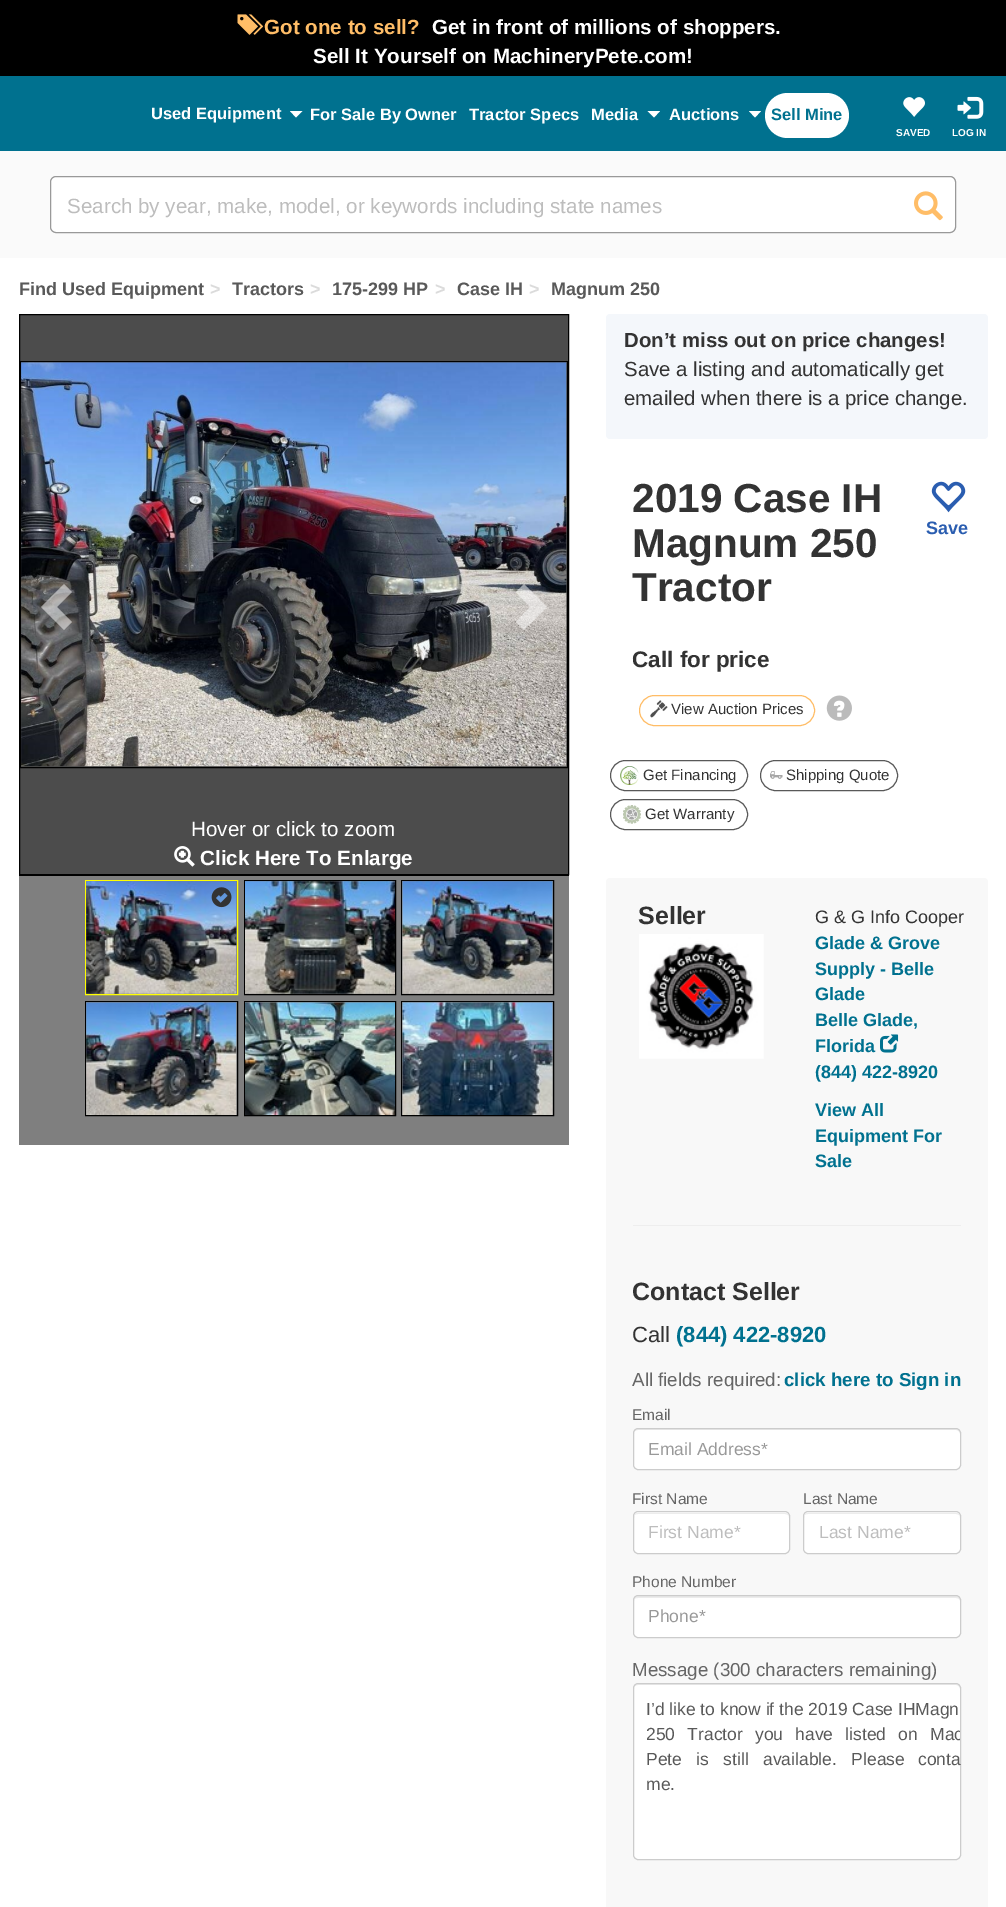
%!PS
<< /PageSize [1006 1907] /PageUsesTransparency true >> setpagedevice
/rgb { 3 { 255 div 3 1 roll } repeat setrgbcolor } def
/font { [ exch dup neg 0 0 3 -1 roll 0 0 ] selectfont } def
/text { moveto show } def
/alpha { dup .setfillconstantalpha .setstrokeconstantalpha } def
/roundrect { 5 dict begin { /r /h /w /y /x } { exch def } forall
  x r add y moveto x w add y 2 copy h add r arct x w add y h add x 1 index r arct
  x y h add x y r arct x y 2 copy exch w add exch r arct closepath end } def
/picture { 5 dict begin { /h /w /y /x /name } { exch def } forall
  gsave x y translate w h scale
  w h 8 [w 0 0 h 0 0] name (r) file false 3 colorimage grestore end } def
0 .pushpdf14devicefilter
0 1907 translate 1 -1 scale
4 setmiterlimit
255 255 255 rgb
0 0 1006 1907 rectfill
0 0 0 rgb
0 0 1006 76 rectfill
(img_01.rgb) 237 14 27 21 picture
0 113 143 rgb
0 76 1006 75 rectfill
255 255 255 rgb
290 111 moveto 12.5 0 rlineto -6.5 6.5 rlineto closepath fill
647.5 111 moveto 12.5 0 rlineto -6 6.5 rlineto closepath fill
749 111 moveto 12 0 rlineto -6 6.5 rlineto closepath fill
765 93 84 45 22.5 roundrect fill
(img_02.rgb) 903 97 22 20 picture
(img_03.rgb) 957 96 27 23 picture
250 250 250 rgb
0 151 1006 107 rectfill
255 255 255 rgb
50.5 176.5 905 56 5.5 roundrect gsave fill grestore
153 153 153 rgb
stroke
(img_04.rgb) 914 191 29 30 picture
244 247 251 rgb
606 314 382 125 4 roundrect fill
76 76 76 rgb
19.5 314.5 moveto 549 0 rlineto 0 560 rlineto -549 0 rlineto closepath gsave fill grestore
0 0 0 rgb
stroke
20.5 361.5 547 406 rectstroke
(img_05.rgb) 21 362 546 405 picture
0.5 alpha
255 255 255 rgb
72 592 moveto -15 15 rlineto 15 15 rlineto -8 8 rlineto -23 -23 rlineto 23 -23 rlineto closepath fill
547 607 moveto -23 23 rlineto -8 -8 rlineto 14 -15 rlineto -14 -15 rlineto 8 -8 rlineto closepath fill
1 alpha
(img_06.rgb) 174 846 21 21 picture
127 127 127 rgb
19 876 550 269 rectfill
0 0 0 rgb
19 875 550 1 rectfill
255 255 0 rgb
85.5 880.5 152 114 rectstroke
(img_07.rgb) 86 881 151 113 picture
(img_08.rgb) 211 887 21 21 picture
0 0 0 rgb
244.5 880.5 151 114 rectstroke
(img_09.rgb) 245 881 150 113 picture
401.5 880.5 152 114 rectstroke
(img_10.rgb) 402 881 151 113 picture
85.5 1001.5 152 114 rectstroke
(img_11.rgb) 86 1002 151 113 picture
244.5 1001.5 151 114 rectstroke
(img_12.rgb) 245 1002 150 113 picture
401.5 1001.5 152 114 rectstroke
(img_13.rgb) 402 1002 151 113 picture
(img_14.rgb) 931 481 35 32 picture
255 189 103 rgb
639.5 695.5 175 30 15 roundrect stroke
(img_15.rgb) 650 700 18 18 picture
(img_16.rgb) 826 695 26 26 picture
89 89 89 rgb
610.5 760.5 137 30 15 roundrect stroke
(img_17.rgb) 620 766 19 19 picture
760.5 760.5 137 30 15 roundrect stroke
(img_18.rgb) 770 771 13 8 picture
610.5 799.5 137 30 15 roundrect stroke
(img_19.rgb) 623 805 18 19 picture
248 248 248 rgb
606 878 382 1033 4 roundrect fill
(img_20.rgb) 639 934 125 125 picture
(img_21.rgb) 880 1034 19 19 picture
238 238 238 rgb
633 1225 328 1 rectfill
255 255 255 rgb
633 1428 328 42 5 roundrect fill
236 236 236 rgb
638 1430 moveto 318 0 rlineto 2 0 4 2 4 4 rcurveto 0 -1 rlineto 0 -2 -2 -4 -4 -4 rcurveto -318 0 rlineto -2 0 -4 2 -4 4 rcurveto 0 1 rlineto 0 -2 1 -4 4 -4 rcurveto closepath fill
204 204 204 rgb
633.5 1428.5 327 41 4.5 roundrect stroke
255 255 255 rgb
633 1511 157 43 5 roundrect fill
236 236 236 rgb
638 1514 moveto 147 0 rlineto 2 0 4 1 4 4 rcurveto 0 -2 -1 -4 -3 -5 rcurveto -149 0 rlineto -2 1 -3 3 -3 5 rcurveto 0 -3 1 -4 4 -4 rcurveto closepath fill
204 204 204 rgb
633.5 1511.5 156 42 4.5 roundrect stroke
255 255 255 rgb
803 1511 158 43 5 roundrect fill
236 236 236 rgb
808 1514 moveto 148 0 rlineto 2 0 4 1 4 4 rcurveto 0 -2 -1 -4 -3 -5 rcurveto -150 0 rlineto -2 1 -3 3 -3 5 rcurveto 0 -3 1 -4 4 -4 rcurveto closepath fill
204 204 204 rgb
803.5 1511.5 157 42 4.5 roundrect stroke
255 255 255 rgb
633 1595 328 43 5 roundrect fill
236 236 236 rgb
638 1598 moveto 318 0 rlineto 2 0 4 1 4 3 rcurveto 0 -1 rlineto 0 -2 -2 -4 -4 -4 rcurveto -318 0 rlineto -2 0 -4 2 -4 4 rcurveto 0 1 rlineto 0 -2 1 -3 4 -3 rcurveto closepath fill
204 204 204 rgb
633.5 1595.5 327 42 4.5 roundrect stroke
255 255 255 rgb
633 1683 328 177 5 roundrect fill
236 236 236 rgb
638 1685 moveto 318 0 rlineto 2 0 4 2 4 4 rcurveto 0 -1 rlineto 0 -2 -2 -4 -4 -4 rcurveto -318 0 rlineto -2 0 -4 2 -4 4 rcurveto 0 1 rlineto 0 -2 1 -4 4 -4 rcurveto closepath fill
204 204 204 rgb
633.5 1683.5 327 176 4.5 roundrect stroke
/LiberationSans-Bold 20.6 font
255 189 103 rgb
(Got one to sell?) 264 34 text
255 255 255 rgb
(Get in front of millions of shoppers.) 432 34 text
(Sell It Yourself on MachineryPete.com!) 313 63 text
/LiberationSans-Bold 16.5 font
(Used Equipment) 151 119 text
(For Sale By Owner) 310 120 text
(Tractor Specs) 469 120 text
(Media) 591 120 text
(Auctions) 669 120 text
0 113 143 rgb
(Sell Mine) 771 120 text
/LiberationSans-Bold 10 font
255 255 255 rgb
(SAVED) 896 136 text
(LOG IN) 952 136 text
/LiberationSans-Regular 20.6 font
189 189 189 rgb
(Search by year, make, model, or keywords including state names) 67 213 text
/LiberationSans-Bold 18 font
89 89 89 rgb
(Find Used Equipment) 19 295 text
219 219 219 rgb
(>) 210 295 text
89 89 89 rgb
(Tractors) 232 295 text
219 219 219 rgb
(>) 310 295 text
89 89 89 rgb
(175-299 HP) 332 295 text
219 219 219 rgb
(>) 435 295 text
89 89 89 rgb
(Case IH) 457 295 text
219 219 219 rgb
(>) 529 295 text
89 89 89 rgb
(Magnum 250) 551 295 text
/LiberationSans-Bold 20.4 font
51 51 51 rgb
(Don’t miss out on price changes!) 624 347 text
/LiberationSans-Regular 20.4 font
(Save a listing and automatically get) 624 376 text
(emailed when there is a price change.) 624 405 text
/LiberationSans-Regular 20.6 font
255 255 255 rgb
(Hover or click to zoom) 191 836 text
/LiberationSans-Bold 20.6 font
(Click Here To Enlarge) 200 865 text
/LiberationSans-Bold 40.5 font
51 51 51 rgb
(2019 Case IH) 632 512 text
(Magnum 250) 632 557 text
(Tractor) 632 601 text
/LiberationSans-Bold 18 font
42 93 176 rgb
(Save) 926 534 text
/LiberationSans-Bold 22.5 font
51 51 51 rgb
(Call for price) 632 667 text
/LiberationSans-Regular 15 font
(View Auction Prices) 671 714 text
(Get Financing) 643 780 text
(Shipping Quote) 786 780 text
(Get Warranty) 645 819 text
/LiberationSans-Bold 25 font
(Seller) 638 924 text
/LiberationSans-Regular 18 font
(G & G Info Cooper) 815 923 text
/LiberationSans-Bold 18 font
0 113 143 rgb
(Glade & Grove) 815 949 text
(Supply - Belle) 815 975 text
(Glade) 815 1000 text
(Belle Glade,) 815 1026 text
(Florida) 815 1052 text
(\(844\) 422-8920) 815 1078 text
(View All) 815 1116 text
(Equipment For) 815 1142 text
(Sale) 815 1167 text
/LiberationSans-Bold 25 font
51 51 51 rgb
(Contact Seller) 632 1300 text
/LiberationSans-Regular 22 font
(Call) 632 1342 text
/LiberationSans-Bold 22 font
0 113 143 rgb
(\(844\) 422-8920) 676 1342 text
/LiberationSans-Regular 18.75 font
102 102 102 rgb
(All fields required:) 632 1386 text
/LiberationSans-Bold 18.75 font
0 113 143 rgb
(click here to Sign in) 784 1386 text
/LiberationSans-Regular 15.5 font
102 102 102 rgb
(Email) 632 1420 text
/LiberationSans-Regular 17.5 font
153 153 153 rgb
(Email Address*) 648 1455 text
/LiberationSans-Regular 15.5 font
102 102 102 rgb
(First Name) 632 1504 text
/LiberationSans-Regular 17.5 font
189 189 189 rgb
(First Name*) 648 1538 text
/LiberationSans-Regular 15.5 font
102 102 102 rgb
(Last Name) 803 1504 text
/LiberationSans-Regular 17.5 font
189 189 189 rgb
(Last Name*) 819 1538 text
/LiberationSans-Regular 15.5 font
102 102 102 rgb
(Phone Number) 632 1587 text
/LiberationSans-Regular 17.5 font
153 153 153 rgb
(Phone*) 648 1622 text
/LiberationSans-Regular 18.75 font
102 102 102 rgb
(Message \(300 characters remaining\)) 632 1676 text
/LiberationSans-Regular 17.5 font
89 89 89 rgb
(I’d like to know if the 2019 Case IHMagn) 646 1715 text
646 1740 moveto 7.25 0 32 (250 Tractor you have listed on) widthshow
gsave
634 1684 326 175 4 roundrect clip newpath
(Mac) 930 1740 text
grestore
646 1765 moveto 9.5 0 32 (Pete is still available. Please) widthshow
(conta) 918 1765 text
(me.) 646 1790 text
.poppdf14devicefilter showpage
